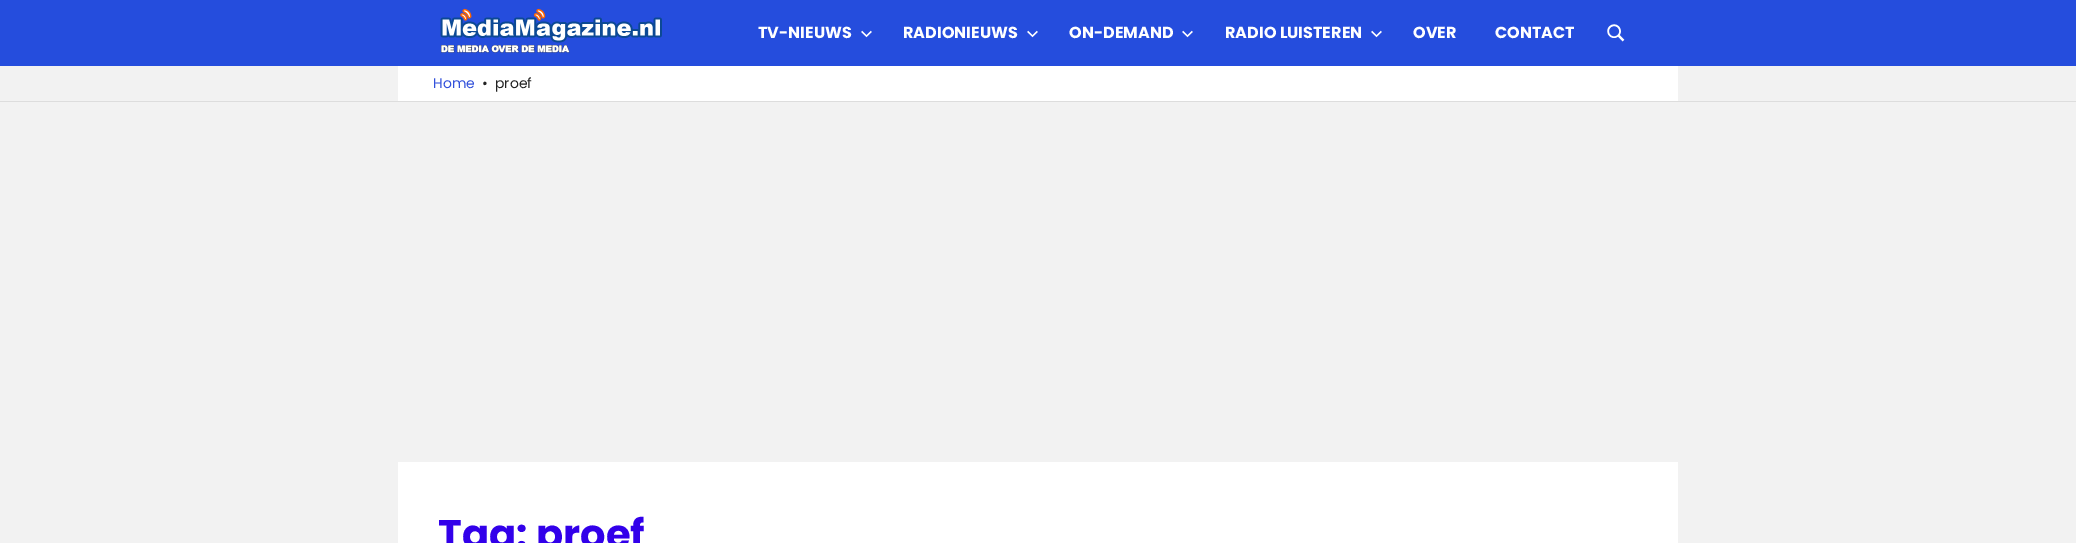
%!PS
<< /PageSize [2076 543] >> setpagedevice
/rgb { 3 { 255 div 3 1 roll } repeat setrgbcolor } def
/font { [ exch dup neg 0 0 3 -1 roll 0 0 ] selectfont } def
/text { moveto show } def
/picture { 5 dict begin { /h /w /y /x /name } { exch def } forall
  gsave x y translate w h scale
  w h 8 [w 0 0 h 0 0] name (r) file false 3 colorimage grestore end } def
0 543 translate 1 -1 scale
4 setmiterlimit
242 242 242 rgb
0 0 2076 543 rectfill
37 77 221 rgb
0 0 2076 66 rectfill
(img_01.rgb) 440 8 222 45 picture
(img_02.rgb) 861 30 11 8 picture
(img_02.rgb) 1027 30 11 8 picture
(img_02.rgb) 1182 30 11 8 picture
(img_02.rgb) 1371 30 11 8 picture
(img_03.rgb) 1607 24 18 18 picture
221 221 221 rgb
0 101 2076 1 rectfill
255 255 255 rgb
398 66 1280 35 rectfill
398 462 1280 81 rectfill
/Poppins-Bold 16 font
(TV-NIEUWS) 758 38 text
(RADIONIEUWS) 903 38 text
(ON-DEMAND) 1069 38 text
(RADIO LUISTEREN) 1225 38 text
(OVER) 1413 38 text
(CONTACT) 1495 38 text
/Poppins-Regular 14 font
50 81 219 rgb
(Home) 433 88 text
34 34 34 rgb
(•) 482 88 text
(proef) 495 88 text
/Poppins-Bold 40 font
50 0 234 rgb
(Tag: proef) 438 548 text
showpage
